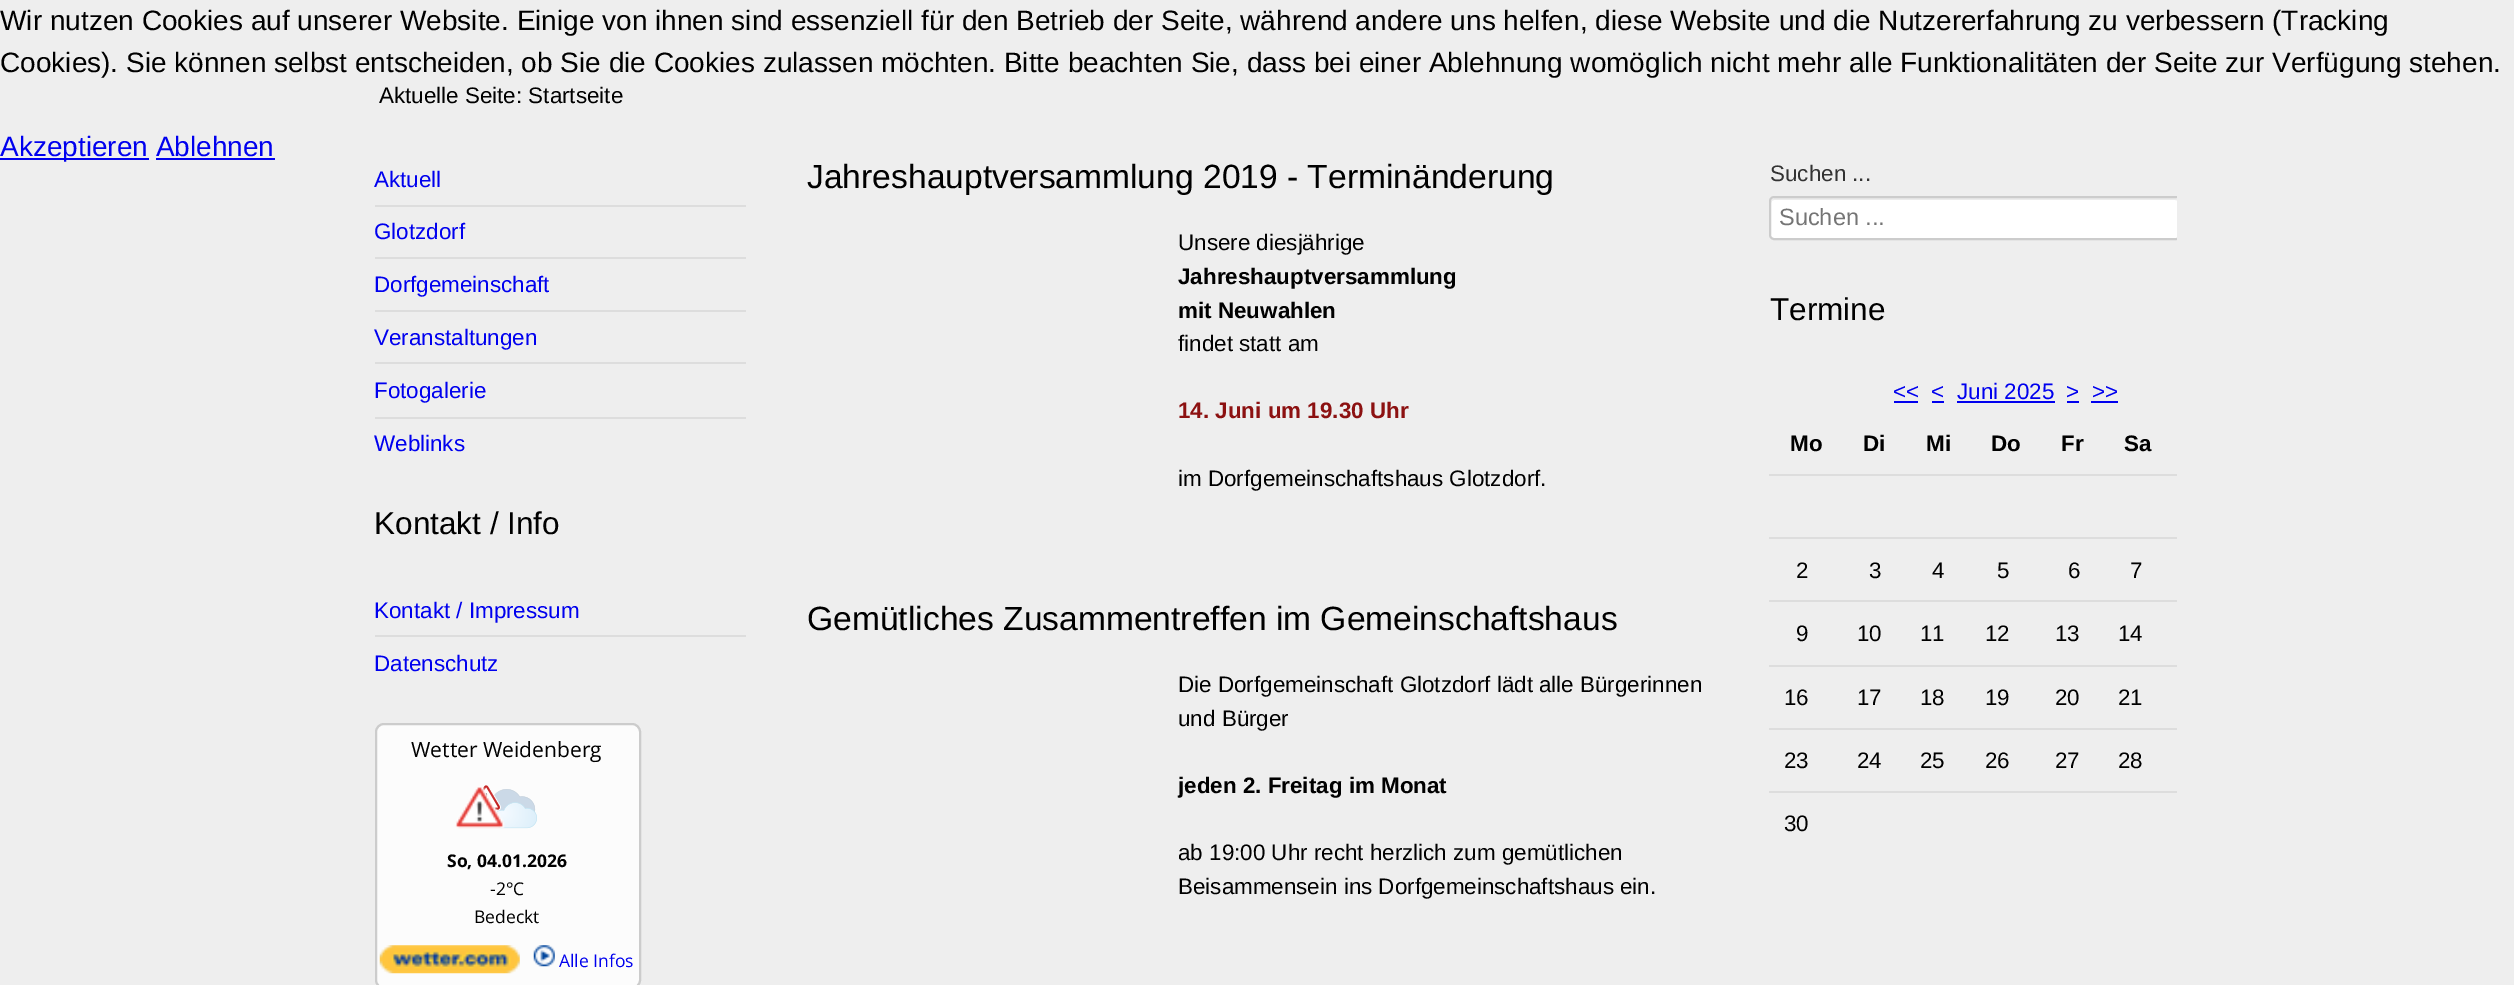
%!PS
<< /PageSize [2514 985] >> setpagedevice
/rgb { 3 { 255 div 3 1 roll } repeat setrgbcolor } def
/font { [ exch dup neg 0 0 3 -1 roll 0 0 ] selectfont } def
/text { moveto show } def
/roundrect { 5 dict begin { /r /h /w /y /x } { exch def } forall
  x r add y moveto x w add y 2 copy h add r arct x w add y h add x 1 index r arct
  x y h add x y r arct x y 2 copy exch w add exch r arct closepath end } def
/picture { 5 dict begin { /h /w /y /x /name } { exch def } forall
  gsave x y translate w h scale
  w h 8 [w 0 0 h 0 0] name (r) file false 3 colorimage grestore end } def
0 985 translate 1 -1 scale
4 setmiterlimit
238 238 238 rgb
0 0 2514 985 rectfill
0 0 238 rgb
0 158 149 2 rectfill
156 158 119 2 rectfill
221 221 221 rgb
375 205 371 2 rectfill
375 257 371 2 rectfill
375 310 371 2 rectfill
375 362 371 2 rectfill
375 417 371 2 rectfill
375 635 371 2 rectfill
252 252 252 rgb
376 724 264 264 8 roundrect gsave fill grestore
204 204 204 rgb
2 setlinewidth
stroke
(img_02.rgb) 481 785 56 44 picture
(img_01.rgb) 455 787 50 42 picture
(img_03.rgb) 379 945 141 29 picture
(img_04.rgb) 533 945 22 22 picture
gsave
340 70 1837 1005 rectclip
255 255 255 rgb
1769 196 412 44 5 roundrect fill
236 236 236 rgb
1774 200 moveto 401 0 rlineto 2 0 4 1 4 3 rcurveto 0 -1 rlineto 0 -2 -2 -4 -4 -4 rcurveto -400 0 rlineto -2 0 -4 2 -4 4 rcurveto 0 1 rlineto 0 -2 2 -3 3 -3 rcurveto closepath fill
204 204 204 rgb
1770 197 410 42 4 roundrect stroke
grestore
0 0 238 rgb
1894 401 24 2 rectfill
1932 401 12 2 rectfill
1957 401 98 2 rectfill
2067 401 12 2 rectfill
2091 401 27 2 rectfill
221 221 221 rgb
1769 474 408 2 rectfill
1769 537 408 2 rectfill
1769 600 408 2 rectfill
1769 665 408 2 rectfill
1769 728 408 2 rectfill
1769 791 408 2 rectfill
/LiberationSans-Regular 28 font
0 0 0 rgb
(Wir nutzen Cookies auf unserer Website. Einige von ihnen sind essenziell für den Betrieb der Seite, während andere uns helfen, diese Website und die Nutzererfahrung zu verbessern \(Tracking) 0 30 text
(Cookies\). Sie können selbst entscheiden, ob Sie die Cookies zulassen möchten. Bitte beachten Sie, dass bei einer Ablehnung womöglich nicht mehr alle Funktionalitäten der Seite zur Verfügung stehen.) 0 72 text
0 0 238 rgb
(Akzeptieren Ablehnen) 0 156 text
/LiberationSans-Regular 22.4 font
0 0 0 rgb
(Aktuelle Seite: Startseite) 379 103 text
0 0 238 rgb
(Aktuell) 374 187 text
(Glotzdorf) 374 239 text
(Dorfgemeinschaft) 374 292 text
(Veranstaltungen) 374 345 text
(Fotogalerie) 374 398 text
(Weblinks) 374 451 text
/LiberationSans-Regular 31.5 font
0 0 0 rgb
(Kontakt / Info) 374 534 text
/LiberationSans-Regular 22.4 font
0 0 238 rgb
(Kontakt / Impressum) 374 618 text
(Datenschutz) 374 671 text
/OpenSans-Regular 21 font
0 0 0 rgb
(Wetter Weidenberg) 411 757 text
/OpenSans-Bold 17.5 font
(So, 04.01.2026) 447 867 text
/OpenSans-Regular 17.5 font
(-2°C) 490 895 text
(Bedeckt) 474 923 text
0 0 238 rgb
(Alle Infos) 559 967 text
/LiberationSans-Regular 33.6 font
0 0 0 rgb
(Jahreshauptversammlung 2019 - Terminänderung) 807 188 text
/LiberationSans-Regular 22.4 font
(Unsere diesjährige) 1178 250 text
/LiberationSans-Bold 22.4 font
(Jahreshauptversammlung) 1178 284 text
(mit Neuwahlen) 1178 318 text
/LiberationSans-Regular 22.4 font
(findet statt am) 1178 351 text
/LiberationSans-Bold 22.4 font
140 17 17 rgb
(14. Juni um 19.30 Uhr) 1178 418 text
/LiberationSans-Regular 22.4 font
0 0 0 rgb
(im Dorfgemeinschaftshaus Glotzdorf.) 1178 486 text
/LiberationSans-Regular 33.6 font
(Gemütliches Zusammentreffen im Gemeinschaftshaus) 807 630 text
/LiberationSans-Regular 22.4 font
(Die Dorfgemeinschaft Glotzdorf lädt alle Bürgerinnen) 1178 692 text
(und Bürger) 1178 726 text
/LiberationSans-Bold 22.4 font
(jeden 2. Freitag im Monat) 1178 793 text
/LiberationSans-Regular 22.4 font
(ab 19:00 Uhr recht herzlich zum gemütlichen) 1178 860 text
(Beisammensein ins Dorfgemeinschaftshaus ein.) 1178 894 text
51 51 51 rgb
(Suchen ...) 1770 181 text
/LiberationSans-Regular 23.5 font
117 117 117 rgb
(Suchen ...) 1779 225 text
/LiberationSans-Regular 31.5 font
0 0 0 rgb
(Termine) 1770 320 text
/LiberationSans-Regular 22.4 font
0 0 238 rgb
(<<) 1893 399 text
(<) 1931 399 text
(Juni 2025) 1957 399 text
(>) 2066 399 text
(>>) 2092 399 text
/LiberationSans-Bold 22.4 font
0 0 0 rgb
(Mo) 1790 451 text
(Di) 1863 451 text
(Mi) 1926 451 text
(Do) 1991 451 text
(Fr) 2061 451 text
(Sa) 2124 451 text
/LiberationSans-Regular 22.4 font
(2) 1796 578 text
(3) 1869 578 text
(4) 1932 578 text
(5) 1997 578 text
(6) 2068 578 text
(7) 2130 578 text
(9) 1796 641 text
(10) 1857 641 text
(11) 1920 641 text
(12) 1985 641 text
(13) 2055 641 text
(14) 2118 641 text
(16) 1784 705 text
(17) 1857 705 text
(18) 1920 705 text
(19) 1985 705 text
(20) 2055 705 text
(21) 2118 705 text
(23) 1784 768 text
(24) 1857 768 text
(25) 1920 768 text
(26) 1985 768 text
(27) 2055 768 text
(28) 2118 768 text
(30) 1784 831 text
showpage
